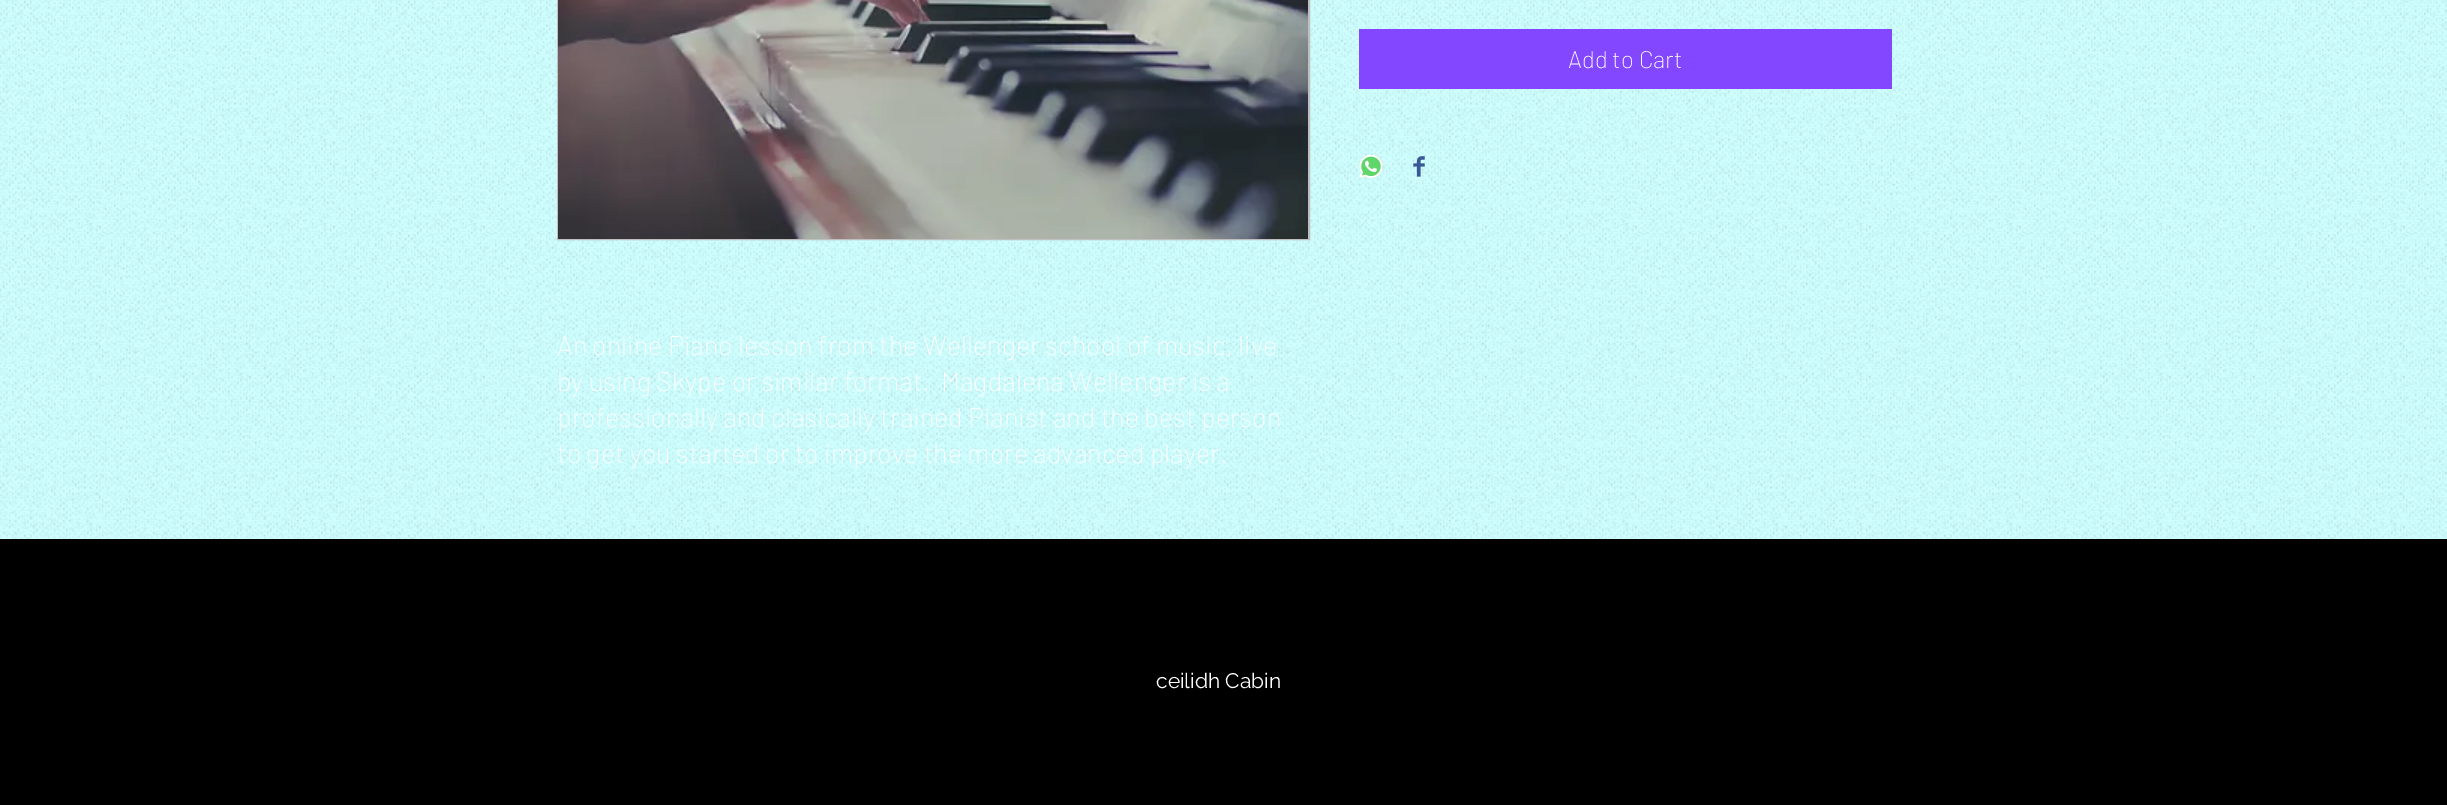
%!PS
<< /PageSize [2447 805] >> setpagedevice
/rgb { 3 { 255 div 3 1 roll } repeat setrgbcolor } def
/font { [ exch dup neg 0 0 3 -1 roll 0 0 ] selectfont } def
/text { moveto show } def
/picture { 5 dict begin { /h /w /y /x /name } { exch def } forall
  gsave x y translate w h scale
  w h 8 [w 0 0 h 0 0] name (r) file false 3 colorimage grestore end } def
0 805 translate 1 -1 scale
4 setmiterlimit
207 255 255 rgb
0 0 2447 805 rectfill
(img_01.rgb) 0 0 2447 539 picture
131 71 255 rgb
1359 29 533 60 rectfill
(img_02.rgb) 1359 155 24 24 picture
(img_03.rgb) 1413 156 12 21 picture
191 191 191 rgb
2 setlinewidth
558 -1 751 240 rectstroke
(img_04.rgb) 558 0 750 239 picture
0 0 0 rgb
0 539 2447 266 rectfill
/Barlow-ExtraLight 24 font
255 255 255 rgb
(Add to Cart) 1568 68 text
/Barlow-ExtraLight 27 font
(An online Piano lesson from the Wellenger school of music, live) 557 355 text
(by using Skype or similar format.  Magdalena Wellenger is a) 557 391 text
(professionally and clasically trained Pianist and the best person) 557 427 text
(to get you started or to improve the more advanced player.) 557 463 text
/Raleway-Regular 21 font
(ceilidh Cabin) 1156 688 text
showpage
